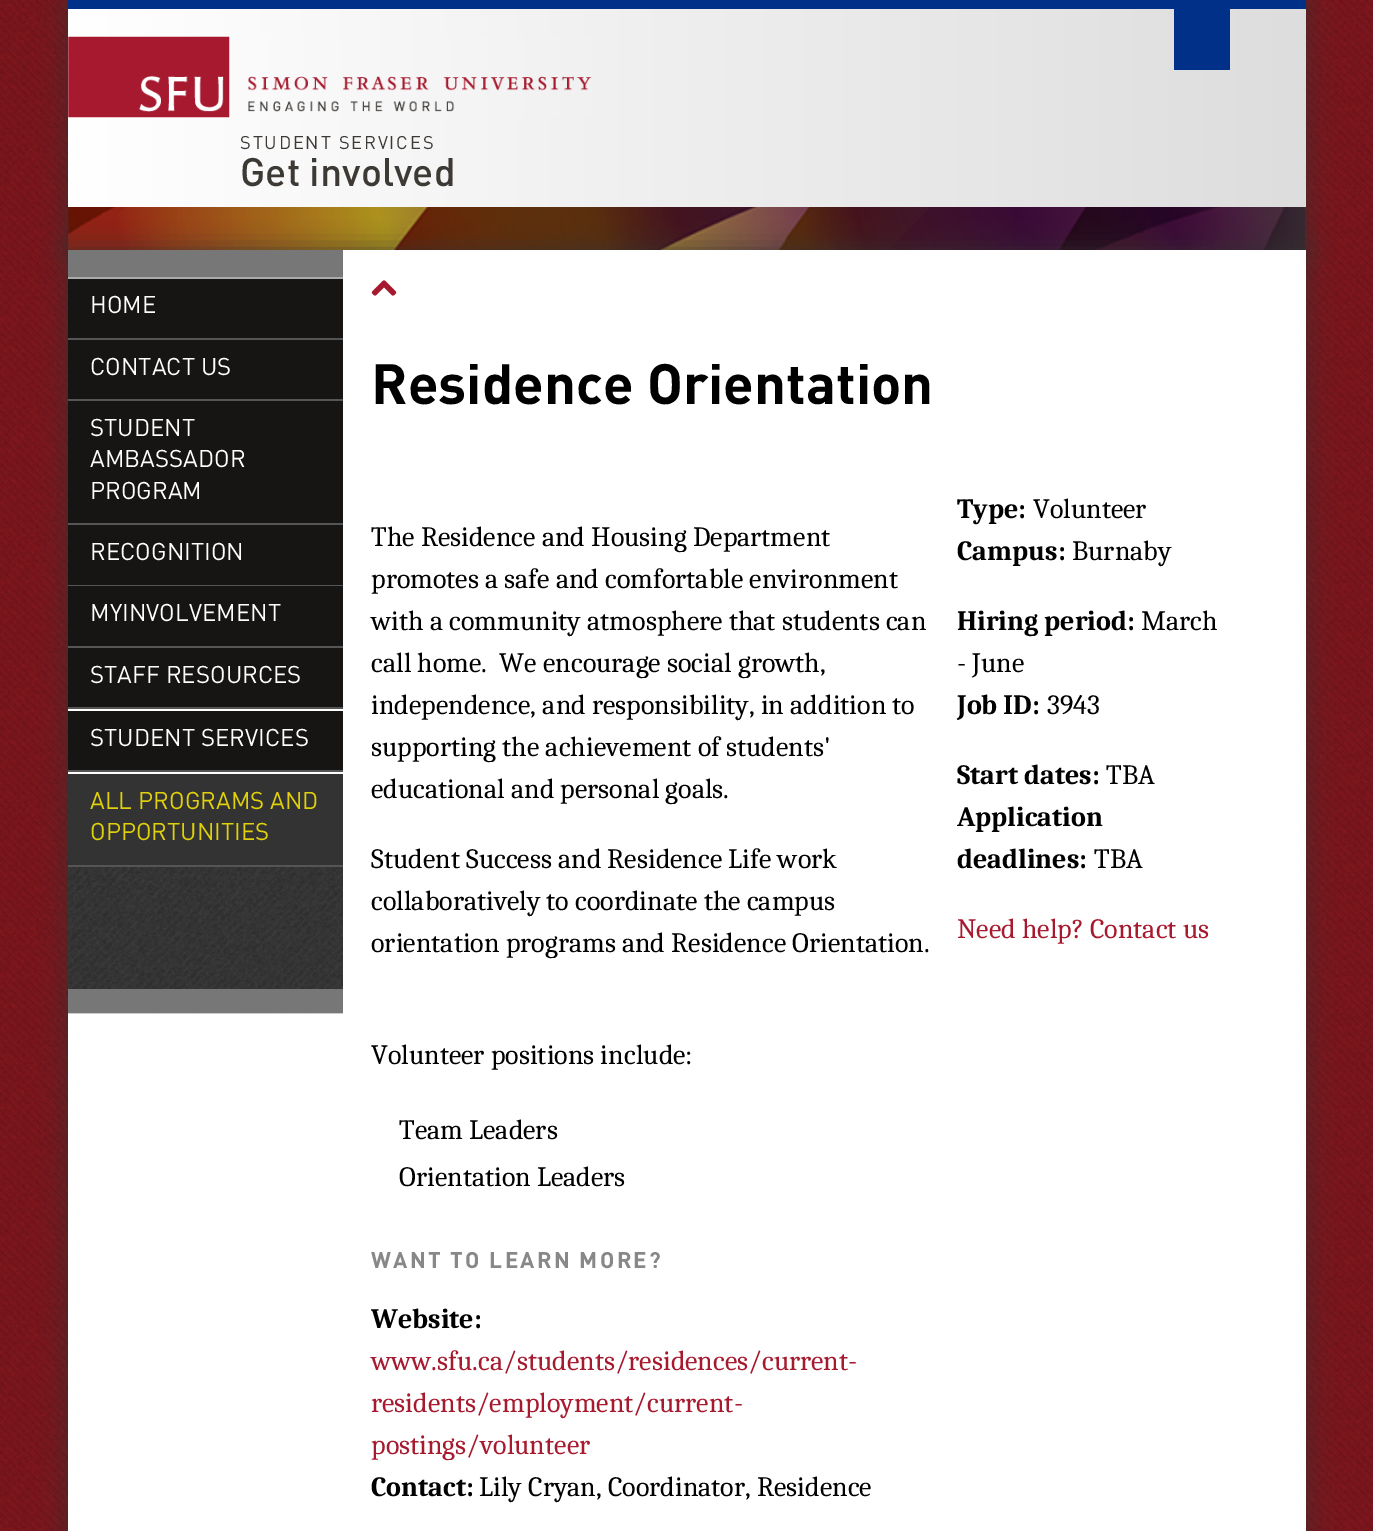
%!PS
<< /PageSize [1373 1531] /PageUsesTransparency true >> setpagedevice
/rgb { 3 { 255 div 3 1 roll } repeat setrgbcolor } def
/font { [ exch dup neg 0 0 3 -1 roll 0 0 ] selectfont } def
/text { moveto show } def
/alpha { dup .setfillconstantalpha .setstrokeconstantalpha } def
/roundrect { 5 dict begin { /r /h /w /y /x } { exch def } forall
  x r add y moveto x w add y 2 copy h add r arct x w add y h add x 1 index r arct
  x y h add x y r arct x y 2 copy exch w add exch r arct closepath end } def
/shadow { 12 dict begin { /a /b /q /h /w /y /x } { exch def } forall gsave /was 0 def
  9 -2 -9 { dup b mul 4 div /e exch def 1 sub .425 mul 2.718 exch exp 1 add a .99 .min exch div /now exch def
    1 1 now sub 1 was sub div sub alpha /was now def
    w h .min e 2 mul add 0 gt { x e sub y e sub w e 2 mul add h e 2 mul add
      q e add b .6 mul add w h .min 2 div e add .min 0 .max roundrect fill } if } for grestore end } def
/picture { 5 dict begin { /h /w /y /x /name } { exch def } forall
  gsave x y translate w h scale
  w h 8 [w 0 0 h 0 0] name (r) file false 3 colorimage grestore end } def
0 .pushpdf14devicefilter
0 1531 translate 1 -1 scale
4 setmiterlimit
255 255 255 rgb
0 0 1373 1531 rectfill
(img_01.rgb) 0 0 1373 1531 picture
50 50 50 rgb
68 0 1238 250 0 13 0.75 shadow
gsave 68 9 moveto 1238 0 rlineto 0 198 rlineto -1238 0 rlineto closepath clip newpath
<< /ShadingType 2 /ColorSpace /DeviceRGB /Coords [68 108 1306 108] /Extend [true true] /Function << /FunctionType 2 /Domain [0 1] /C0 [1 1 1] /C1 [0.867 0.867 0.867] /N 1 >> >> shfill grestore
0 48 135 rgb
68 0 1238 9 rectfill
1174 9 56 61 rectfill
(img_02.rgb) 68 36 524 82 picture
61 57 53 rgb
68 207 1238 43 rectfill
(img_03.rgb) 68 207 1238 43 picture
50 50 50 rgb
68 250 1238 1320 0 13 0.75 shadow
255 255 255 rgb
68 250 1238 1281 rectfill
(img_04.rgb) 68 867 275 147 picture
119 119 119 rgb
68 250 275 27 rectfill
68 989 275 24 rectfill
22 21 19 rgb
68 279 275 59 rectfill
170 170 170 rgb
68 277 275 2 rectfill
85 85 85 rgb
68 338 275 2 rectfill
22 21 19 rgb
68 340 275 59 rectfill
85 85 85 rgb
68 399 275 2 rectfill
22 21 19 rgb
68 401 275 122 rectfill
85 85 85 rgb
68 523 275 2 rectfill
22 21 19 rgb
68 525 275 60 rectfill
85 85 85 rgb
68 585 275 1 rectfill
22 21 19 rgb
68 586 275 60 rectfill
85 85 85 rgb
68 646 275 2 rectfill
22 21 19 rgb
68 648 275 59 rectfill
85 85 85 rgb
68 707 275 2 rectfill
22 21 19 rgb
68 711 275 59 rectfill
85 85 85 rgb
68 770 275 2 rectfill
51 51 51 rgb
68 774 275 91 rectfill
85 85 85 rgb
68 865 275 2 rectfill
(img_05.rgb) 371 280 26 16 picture
/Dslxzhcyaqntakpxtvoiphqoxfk-Regular 18.25 font
61 57 53 rgb
240 149 moveto 1.8 0 (STUDENT SERVICES) ashow
/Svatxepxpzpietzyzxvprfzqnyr-Medium 39.25 font
(Get involved) 240 186 text
/Dslxzhcyaqntakpxtvoiphqoxfk-Regular 24 font
255 255 255 rgb
(HOME) 90 313 text
(CONTACT US) 90 375 text
(STUDENT) 90 436 text
(AMBASSADOR) 90 467 text
(PROGRAM) 90 499 text
(RECOGNITION) 90 560 text
(MYINVOLVEMENT) 90 621 text
(STAFF RESOURCES) 90 683 text
(STUDENT SERVICES) 90 746 text
224 209 10 rgb
(ALL PROGRAMS AND) 90 809 text
(OPPORTUNITIES) 90 840 text
/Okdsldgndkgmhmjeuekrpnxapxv-Bold 56 font
0 0 0 rgb
(Residence Orientation) 371 404 text
/Caladea-Regular 28 font
(The Residence and Housing Department) 371 546 text
(promotes a safe and comfortable environment) 371 588 text
(with a community atmosphere that students can) 371 630 text
(call home.  We encourage social growth,) 371 672 text
(independence, and responsibility, in addition to) 371 714 text
(supporting the achievement of students') 371 756 text
(educational and personal goals.) 371 798 text
(Student Success and Residence Life work) 371 868 text
(collaboratively to coordinate the campus) 371 910 text
(orientation programs and Residence Orientation.) 371 952 text
(Volunteer positions include:) 371 1064 text
(Team Leaders) 399 1139 text
(Orientation Leaders) 399 1186 text
/Okdsldgndkgmhmjeuekrpnxapxv-Bold 22.4 font
136 136 136 rgb
371 1268 moveto 2.25 0 (WANT TO LEARN MORE?) ashow
/Caladea-Bold 28 font
0 0 0 rgb
(Website:) 371 1328 text
/Caladea-Regular 28 font
166 25 46 rgb
(www.sfu.ca/students/residences/current-) 371 1370 text
(residents/employment/current-) 371 1412 text
(postings/volunteer) 371 1454 text
/Caladea-Bold 28 font
0 0 0 rgb
(Contact:) 371 1496 text
/Caladea-Regular 28 font
(Lily Cryan, Coordinator, Residence) 479 1496 text
/Caladea-Bold 28 font
(Type:) 957 518 text
/Caladea-Regular 28 font
(Volunteer) 1033 518 text
/Caladea-Bold 28 font
(Campus:) 957 560 text
/Caladea-Regular 28 font
(Burnaby) 1072 560 text
/Caladea-Bold 28 font
(Hiring period:) 957 630 text
/Caladea-Regular 28 font
(March) 1141 630 text
(- June) 957 672 text
/Caladea-Bold 28 font
(Job ID:) 957 714 text
/Caladea-Regular 28 font
(3943) 1047 714 text
/Caladea-Bold 28 font
(Start dates:) 957 784 text
/Caladea-Regular 28 font
(TBA) 1106 784 text
/Caladea-Bold 28 font
(Application) 957 826 text
(deadlines:) 957 868 text
/Caladea-Regular 28 font
(TBA) 1094 868 text
166 25 46 rgb
(Need help? Contact us) 957 938 text
.poppdf14devicefilter showpage
